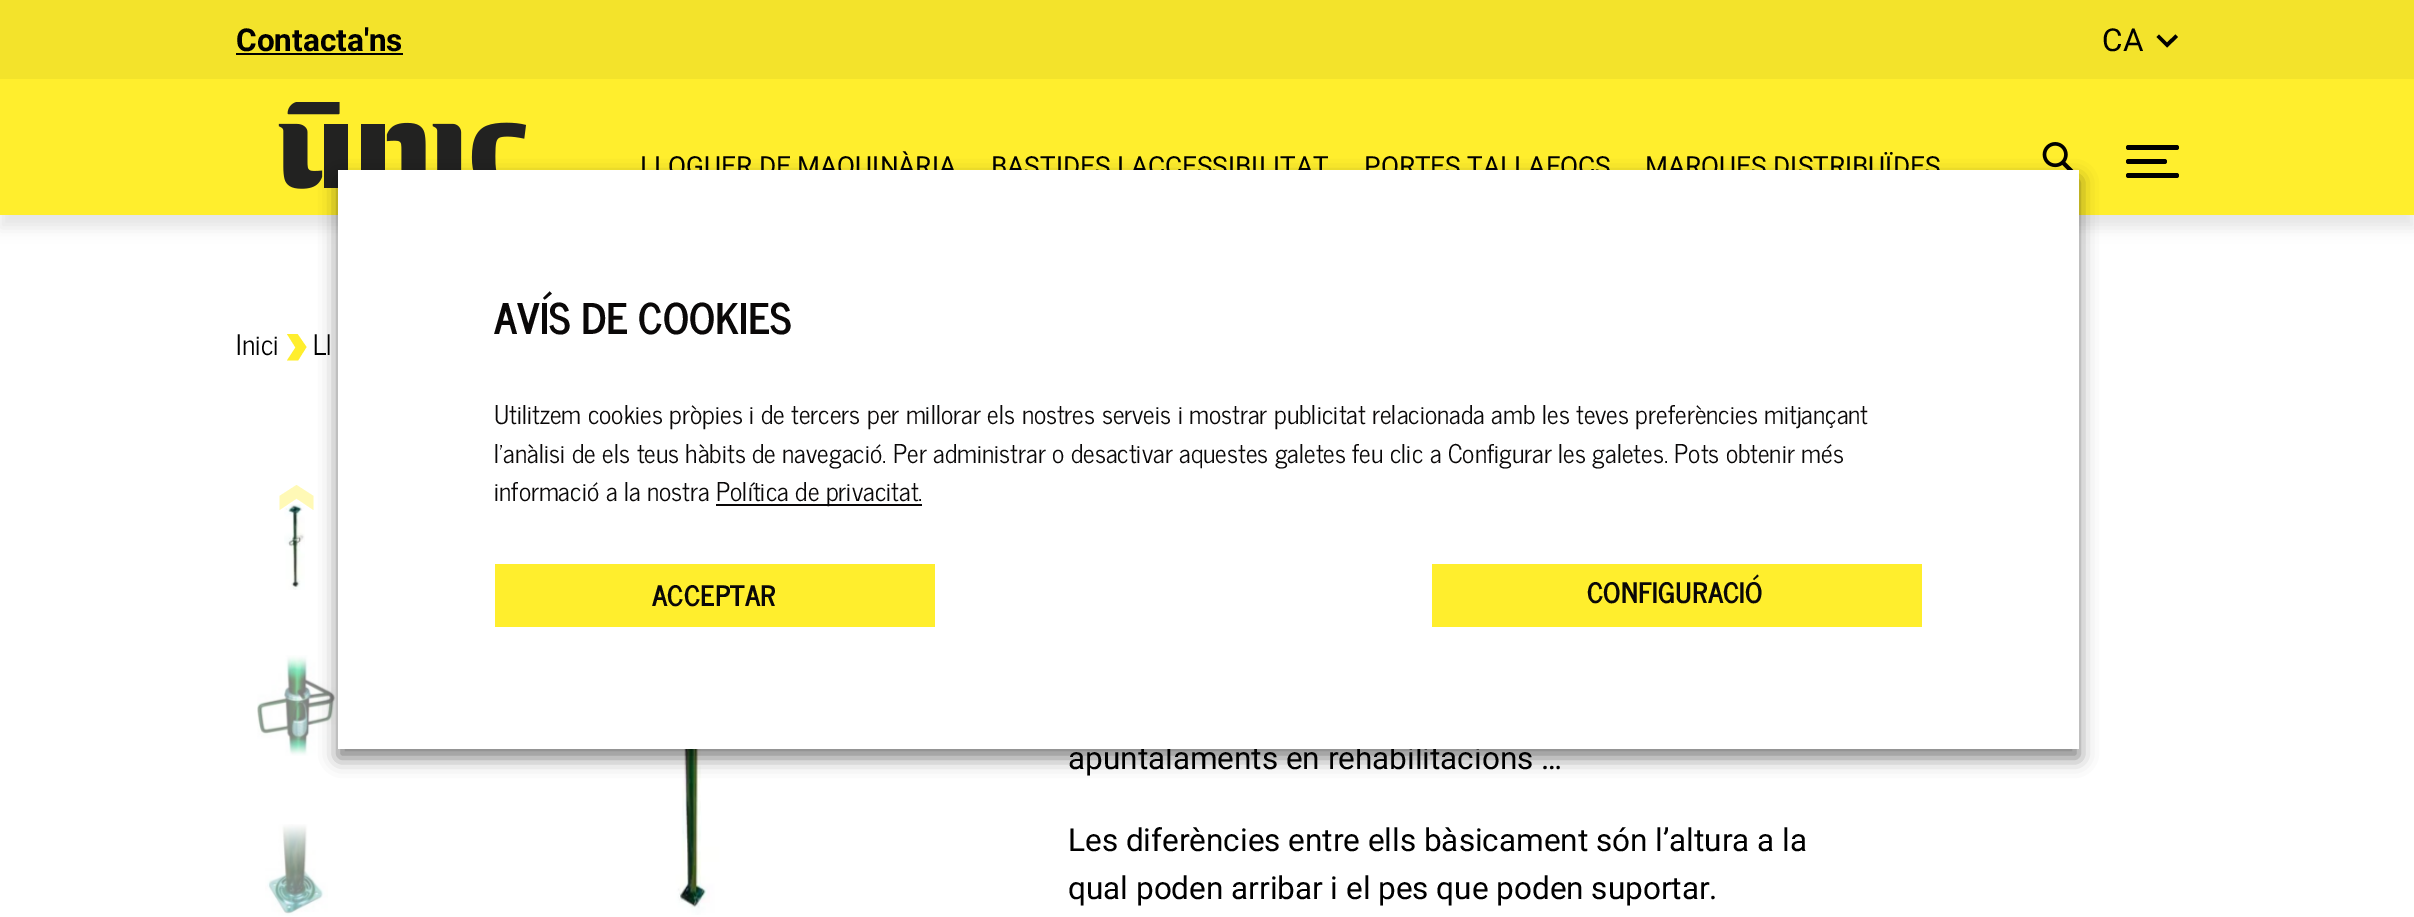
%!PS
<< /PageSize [2414 917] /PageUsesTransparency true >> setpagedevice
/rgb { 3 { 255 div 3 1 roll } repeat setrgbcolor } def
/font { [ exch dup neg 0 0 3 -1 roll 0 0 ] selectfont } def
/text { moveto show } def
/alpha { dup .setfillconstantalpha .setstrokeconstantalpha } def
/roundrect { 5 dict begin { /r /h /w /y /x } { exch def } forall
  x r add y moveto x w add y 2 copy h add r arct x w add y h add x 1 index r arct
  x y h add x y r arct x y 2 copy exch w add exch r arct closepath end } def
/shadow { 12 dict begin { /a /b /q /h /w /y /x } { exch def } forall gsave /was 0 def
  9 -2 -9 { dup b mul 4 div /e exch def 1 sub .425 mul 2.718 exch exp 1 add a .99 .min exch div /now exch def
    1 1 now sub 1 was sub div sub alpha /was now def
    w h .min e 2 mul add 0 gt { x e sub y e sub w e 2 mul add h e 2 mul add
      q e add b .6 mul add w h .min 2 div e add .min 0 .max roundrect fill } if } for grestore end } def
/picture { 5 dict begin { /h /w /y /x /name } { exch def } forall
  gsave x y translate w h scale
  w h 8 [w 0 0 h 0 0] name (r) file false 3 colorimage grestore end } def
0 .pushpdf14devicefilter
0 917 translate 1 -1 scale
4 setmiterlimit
255 255 255 rgb
0 0 2414 917 rectfill
0 0 0 rgb
0 12 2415 216 0 7 0.1 shadow
255 238 45 rgb
0 79 2414 136 rectfill
243 227 43 rgb
0 0 2414 79 rectfill
0 0 0 rgb
236 53 167 2 rectfill
2156.5 37 moveto 2.5 -2.5 rlineto 8 8 rlineto 8.5 -8 rlineto 2.5 2.5 rlineto -11 10.5 rlineto closepath fill
(img_01.rgb) 278 102 248 87 picture
(img_02.rgb) 2042 142 32 28 picture
2126 145 53 5 2.5 roundrect fill
2126 159 41 5 2.5 roundrect fill
2126 173 53 5 2.5 roundrect fill
(img_03.rgb) 284 504 21 86 picture
255 249 182 rgb
279.5 510 moveto 17 -11.5 rlineto 17 11.5 rlineto 0 -14 rlineto -17 -11 rlineto -17 11 rlineto closepath fill
(img_04.rgb) 257 655 79 101 picture
(img_06.rgb) 664 749 65 166 picture
0 0 0 rgb
338 179 1741 579 0 9 0.5 shadow
255 238 45 rgb
287 334 moveto 8.5 13.5 rlineto -8.5 13 rlineto 11 0 rlineto 8.5 -13.5 rlineto -9 -13 rlineto closepath fill
(img_05.rgb) 265 824 63 92 picture
/Roboto-Bold 31.5 font
0 0 0 rgb
(Contacta'ns) 236 51 text
/Roboto-Regular 31.5 font
(CA) 2102 51 text
/Roboto-Regular 26.25 font
(LLOGUER DE MAQUINÀRIA) 640 175 text
(BASTIDES I ACCESSIBILITAT) 991 175 text
(PORTES TALLAFOCS) 1364 175 text
(MARQUES DISTRIBUÏDES) 1645 175 text
/NewsCycle-Regular 28 font
(Inici) 236 355 text
(Ll) 313 355 text
/Roboto-Regular 31.5 font
(apuntalaments en rehabilitacions …) 1068 769 text
255 255 255 rgb
338 170 1741 579 rectfill
255 238 45 rgb
495 564 440 63 rectfill
/NewsCycle-Bold 28 font
10 8 8 rgb
(ACCEPTAR) 652 606 text
255 238 45 rgb
1432 564 490 63 rectfill
10 8 8 rgb
(CONFIGURACIÓ) 1587 603 text
716 504 206 2 rectfill
/NewsCycle-Regular 25.67 font
(Política de privacitat.) 716 501 text
(informació a la nostra) 494 501 text
(l'anàlisi de els teus hàbits de navegació. Per administrar o desactivar aquestes galetes feu clic a Configurar les galetes. Pots obtenir més) 494 463 text
(Utilitzem cookies pròpies i de tercers per millorar els nostres serveis i mostrar publicitat relacionada amb les teves preferències mitjançant) 494 424 text
/NewsCycle-Bold 42 font
(AVÍS DE COOKIES) 494 334 text
/Roboto-Regular 31.5 font
0 0 0 rgb
(Les diferències entre ells bàsicament són l’altura a la) 1068 851 text
(qual poden arribar i el pes que poden suportar.) 1068 899 text
.poppdf14devicefilter showpage
